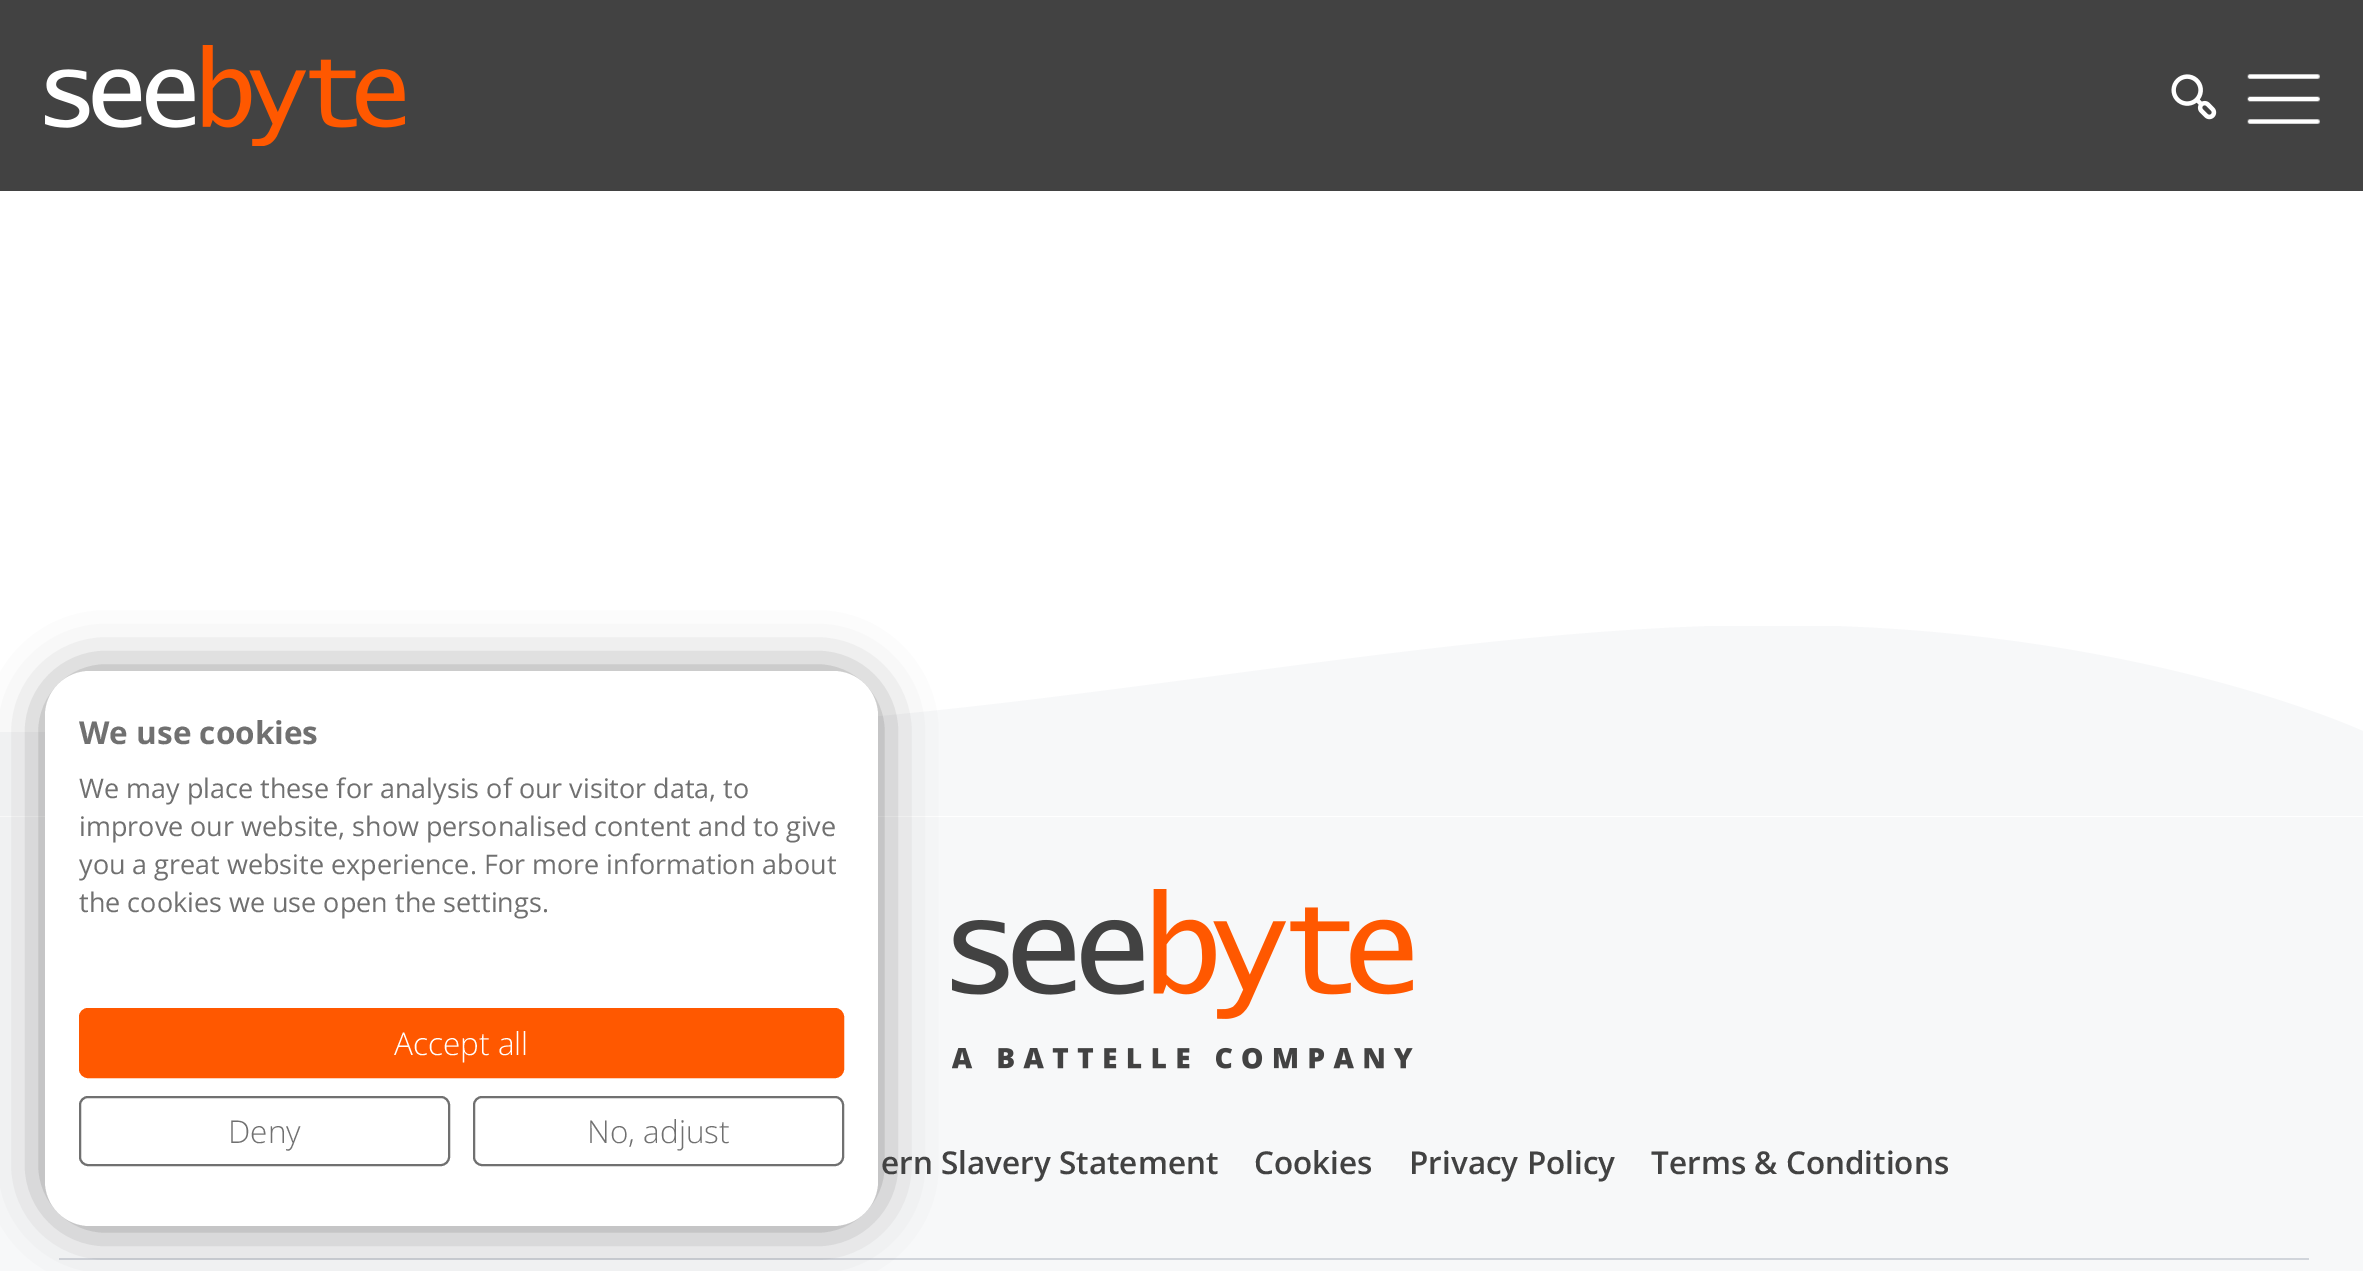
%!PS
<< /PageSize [2363 1271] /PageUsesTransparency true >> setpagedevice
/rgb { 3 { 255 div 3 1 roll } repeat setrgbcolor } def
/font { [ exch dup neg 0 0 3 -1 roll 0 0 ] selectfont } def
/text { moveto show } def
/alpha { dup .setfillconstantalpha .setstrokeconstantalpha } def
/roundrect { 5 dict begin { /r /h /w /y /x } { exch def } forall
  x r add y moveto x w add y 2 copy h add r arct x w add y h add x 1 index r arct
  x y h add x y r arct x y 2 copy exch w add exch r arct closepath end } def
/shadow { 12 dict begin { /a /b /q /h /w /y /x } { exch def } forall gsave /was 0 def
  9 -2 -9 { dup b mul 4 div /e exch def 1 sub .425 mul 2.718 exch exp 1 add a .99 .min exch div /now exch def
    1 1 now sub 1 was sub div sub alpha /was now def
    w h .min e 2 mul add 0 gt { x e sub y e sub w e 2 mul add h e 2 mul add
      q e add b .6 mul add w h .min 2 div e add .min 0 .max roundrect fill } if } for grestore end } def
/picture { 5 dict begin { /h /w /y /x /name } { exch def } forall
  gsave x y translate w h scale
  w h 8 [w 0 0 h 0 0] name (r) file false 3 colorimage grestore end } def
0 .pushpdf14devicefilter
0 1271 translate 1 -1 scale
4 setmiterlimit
255 255 255 rgb
0 0 2363 1271 rectfill
247 248 249 rgb
0 817 2363 454 rectfill
gsave
0 626 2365 191 rectclip
0 732 moveto 575 0 rlineto 421 0 837 -107 1199 -107 rcurveto 361 0 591 107 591 107 rcurveto 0 84 rlineto -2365 0 rlineto closepath fill
grestore
(img_04.rgb) 952 889 461 180 picture
209 213 219 rgb
59 1258 2250 2 rectfill
0 0 0 rgb
45 671 833 555 45 27 0.4 shadow
255 255 255 rgb
45 671 833 555 45 roundrect fill
255 88 0 rgb
80 1009 763 68 8 roundrect gsave fill grestore
2 setlinewidth
stroke
112 112 112 rgb
80 1097 369 68 8 roundrect stroke
474 1097 369 68 8 roundrect stroke
66 66 66 rgb
0 0 2363 191 rectfill
(img_01.rgb) 45 45 360 101 picture
(img_02.rgb) 2171 74 46 46 picture
(img_03.rgb) 2247 74 73 50 picture
/OpenSans-Bold 31.5 font
112 112 112 rgb
(We use cookies) 79 744 text
/OpenSans-Regular 27 font
(We may place these for analysis of our visitor data, to) 79 798 text
(improve our website, show personalised content and to give) 79 836 text
(you a great website experience. For more information about) 79 874 text
(the cookies we use open the settings.) 79 912 text
/OpenSans-Light 31.5 font
255 255 255 rgb
(Accept all) 394 1055 text
112 112 112 rgb
(Deny) 228 1143 text
(No, adjust) 587 1143 text
/OpenSans-SemiBold 31.5 font
66 66 66 rgb
(ern Slavery Statement) 881 1174 text
(Cookies) 1254 1174 text
(Privacy Policy) 1409 1174 text
(Terms & Conditions) 1651 1174 text
.poppdf14devicefilter showpage
